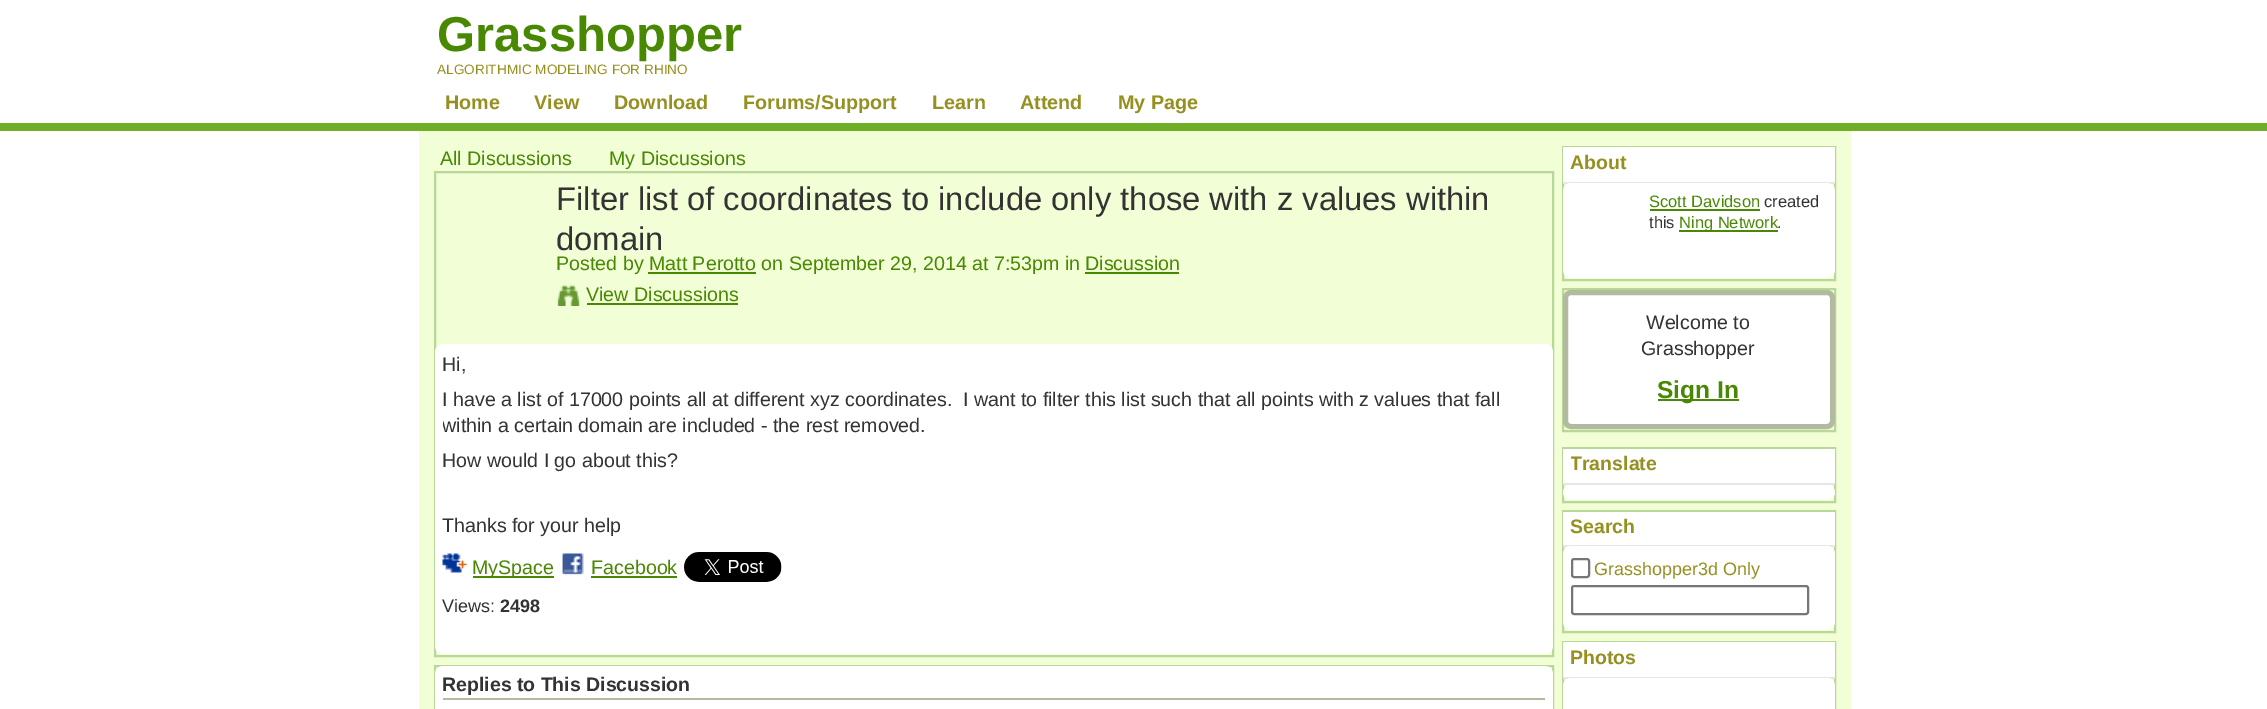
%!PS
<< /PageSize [2267 709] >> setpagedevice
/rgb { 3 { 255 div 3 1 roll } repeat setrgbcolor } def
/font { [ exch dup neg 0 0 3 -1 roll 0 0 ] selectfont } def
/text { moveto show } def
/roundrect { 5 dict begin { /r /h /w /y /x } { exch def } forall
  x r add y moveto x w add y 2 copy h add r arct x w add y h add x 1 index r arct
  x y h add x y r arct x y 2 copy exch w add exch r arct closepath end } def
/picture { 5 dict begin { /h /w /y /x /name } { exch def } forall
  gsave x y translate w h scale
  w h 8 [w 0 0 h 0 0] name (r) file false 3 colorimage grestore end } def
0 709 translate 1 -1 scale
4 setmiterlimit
255 255 255 rgb
0 0 2267 709 rectfill
112 174 39 rgb
0 123 2267 8 rectfill
242 255 214 rgb
419 131 1432 578 rectfill
185 215 151 rgb
2 setlinewidth
435 172 1118 484 rectstroke
73 136 2 rgb
1085 272 94 2 rectfill
648 272 108 2 rectfill
(img_01.rgb) 557 284 23 22 picture
587 303 151 2 rectfill
255 255 255 rgb
435 344 1118 310 8 roundrect fill
(img_02.rgb) 442 553 25 20 picture
73 136 2 rgb
473 576 81 2 rectfill
(img_03.rgb) 562 553 22 22 picture
591 576 86 2 rectfill
(img_04.rgb) 684 552 98 30 picture
185 215 151 rgb
435 666 1118 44 rectstroke
255 255 255 rgb
435 666 1118 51 8 roundrect fill
178 187 160 rgb
443 698 1102 2 rectfill
185 215 151 rgb
1563 147 272 133 rectstroke
255 255 255 rgb
1563 147 272 35 rectfill
231 231 231 rgb
1563 182 272 2 rectfill
255 255 255 rgb
1563 183 272 95 8 roundrect fill
73 136 2 rgb
1650 209 110 2 rectfill
1679 230 99 2 rectfill
185 215 151 rgb
1563 289 272 142 rectstroke
255 255 255 rgb
1565.5 292.5 267 134 5.5 roundrect gsave fill grestore
178 187 160 rgb
5 setlinewidth
stroke
73 136 2 rgb
1658 399 81 2 rectfill
185 215 151 rgb
2 setlinewidth
1563 448 272 54 rectstroke
255 255 255 rgb
1563 449 272 34 rectfill
231 231 231 rgb
1563 483 272 2 rectfill
255 255 255 rgb
1563 485 272 15 7.5 roundrect fill
185 215 151 rgb
1563 511 272 121 rectstroke
255 255 255 rgb
1563 512 272 33 rectfill
231 231 231 rgb
1563 545 272 2 rectfill
255 255 255 rgb
1563 546 272 84 8 roundrect fill
118 118 118 rgb
1572 559 17 18 2 roundrect stroke
1572 586 236 28 2 roundrect stroke
185 215 151 rgb
1563 642 272 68 rectstroke
255 255 255 rgb
1563 642 272 35 rectfill
231 231 231 rgb
1563 677 272 2 rectfill
255 255 255 rgb
1563 678 272 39 8 roundrect fill
/LiberationSans-Bold 49 font
73 136 2 rgb
(Grasshopper) 437 51 text
/LiberationSans-Regular 13.6 font
150 144 33 rgb
(ALGORITHMIC MODELING FOR RHINO) 437 74 text
/LiberationSans-Bold 19.75 font
(Home) 445 109 text
(View) 534 109 text
(Download) 614 109 text
(Forums/Support) 743 109 text
(Learn) 932 109 text
(Attend) 1020 109 text
(My Page) 1118 109 text
/LiberationSans-Regular 19.65 font
73 136 2 rgb
(All Discussions) 440 165 text
(My Discussions) 609 165 text
/LiberationSans-Regular 32.75 font
51 51 51 rgb
(Filter list of coordinates to include only those with z values within) 556 210 text
(domain) 556 250 text
/LiberationSans-Regular 19.65 font
73 136 2 rgb
(Posted by Matt Perotto on September 29, 2014 at 7:53pm in) 556 270 text
(Discussion) 1085 270 text
(View Discussions) 586 301 text
51 51 51 rgb
(Hi,) 442 371 text
(I have a list of 17000 points all at different xyz coordinates.  I want to filter this list such that all points with z values that fall) 442 406 text
gsave
443 351 1102 188 rectclip
(within a certain domain are included - the rest removed.) 442 432 text
grestore
(How would I go about this?) 442 467 text
(Thanks for your help) 442 532 text
73 136 2 rgb
(MySpace) 472 574 text
(Facebook) 591 574 text
/LiberationSans-Regular 18 font
51 51 51 rgb
(Views:) 442 612 text
/LiberationSans-Bold 18 font
(2498) 500 612 text
/LiberationSans-Bold 19.5 font
(Replies to This Discussion) 442 691 text
150 144 33 rgb
(About) 1570 169 text
/LiberationSans-Regular 16.5 font
73 136 2 rgb
(Scott Davidson) 1649 207 text
51 51 51 rgb
(created) 1764 207 text
(this) 1649 228 text
73 136 2 rgb
(Ning Network) 1679 228 text
51 51 51 rgb
(.) 1777 228 text
/LiberationSans-Regular 19.65 font
(Welcome to) 1646 329 text
(Grasshopper) 1641 355 text
/LiberationSans-Bold 24.5 font
73 136 2 rgb
(Sign In) 1657 398 text
gsave
1571 453 85 26 rectclip
/LiberationSans-Bold 19.5 font
150 144 33 rgb
(Translate) 1570 470 text
grestore
/LiberationSans-Bold 19.5 font
150 144 33 rgb
(Search) 1570 533 text
/LiberationSans-Regular 18 font
(Grasshopper3d Only) 1594 575 text
/LiberationSans-Bold 19.5 font
(Photos) 1570 664 text
showpage
